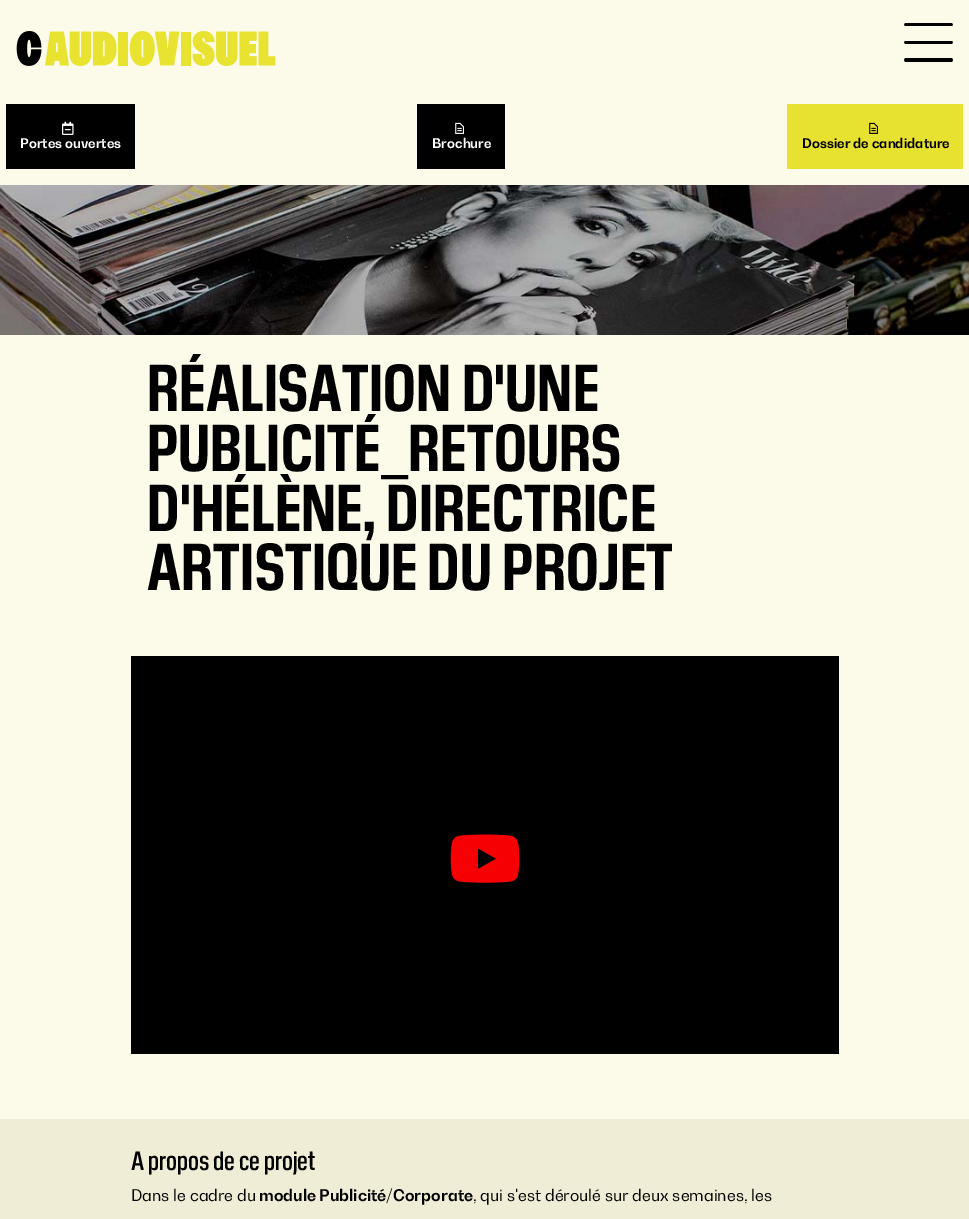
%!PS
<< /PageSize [969 1219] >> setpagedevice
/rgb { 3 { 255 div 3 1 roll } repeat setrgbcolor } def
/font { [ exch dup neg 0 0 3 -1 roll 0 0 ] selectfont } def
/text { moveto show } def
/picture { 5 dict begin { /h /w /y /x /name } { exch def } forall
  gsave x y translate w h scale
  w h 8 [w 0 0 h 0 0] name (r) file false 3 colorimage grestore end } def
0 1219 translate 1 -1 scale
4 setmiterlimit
252 250 232 rgb
0 0 969 1219 rectfill
(img_01.rgb) 16 31 260 35 picture
0 0 0 rgb
904 25 moveto 1 -2 rlineto 47 0 rlineto 1 2 rlineto -1 1 rlineto -47 0 rlineto closepath 904 42 moveto 1 -1 rlineto 47 0 rlineto 1 1 rlineto -1 2 rlineto -47 0 rlineto closepath 953 60 moveto -1 2 rlineto -47 0 rlineto -1 -2 rlineto 1 -2 rlineto 47 0 rlineto closepath fill
6 104 129 65 rectfill
(img_02.rgb) 62 121 12 14 picture
417 104 88 65 rectfill
(img_03.rgb) 455 122 9 12 picture
231 225 47 rgb
787 104 176 65 rectfill
(img_04.rgb) 869 122 9 12 picture
(img_05.rgb) 0 185 969 150 picture
0 0 0 rgb
131 656 708 398 rectfill
(img_06.rgb) 450 834 70 49 picture
240 237 214 rgb
0 1119 969 100 rectfill
/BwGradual-Bold 13.25 font
255 255 255 rgb
(Portes ouvertes) 20 148 text
(Brochure) 432 148 text
0 0 0 rgb
(Dossier de candidature) 802 148 text
/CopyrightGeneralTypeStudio-Bold 66.25 font
147 411 moveto 0.3 0 (RÉALISATION D'UNE) ashow
147 471 moveto 0.3 0 (PUBLICITÉ_RETOURS) ashow
147 531 moveto 0.3 0 (D'HÉLÈNE, DIRECTRICE) ashow
147 590 moveto 0.3 0 (ARTISTIQUE DU PROJET) ashow
/CopyrightGeneralTypeStudio-SemiBold 26.5 font
(A propos de ce projet) 131 1170 text
/BwGradual-Regular 16 font
(Dans le cadre du) 131 1201 text
/BwGradual-Bold 16 font
(module Publicité/Corporate) 259 1201 text
/BwGradual-Regular 16 font
(, qui s'est déroulé sur deux semaines, les) 473 1201 text
showpage
